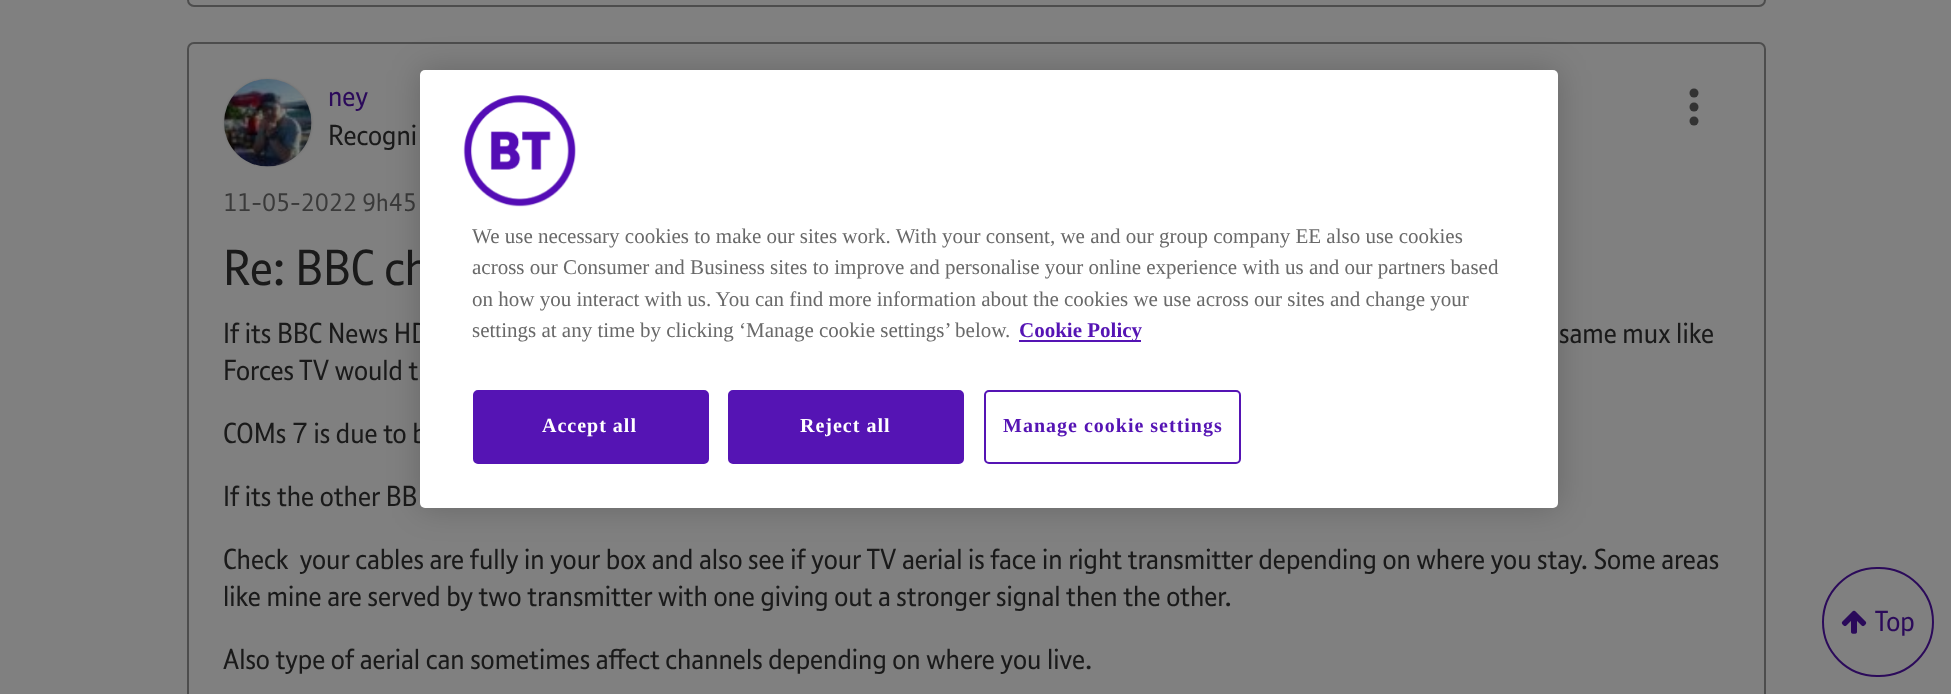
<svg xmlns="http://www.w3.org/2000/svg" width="1951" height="694">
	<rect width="100%" height="100%" fill="#808080" />
	<rect x="188" y="-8" width="1577" height="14" rx="6" fill="none" stroke="#4D4D4D" stroke-width="2" />
	<rect x="188" y="43" width="1577" height="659" rx="6" fill="none" stroke="#4D4D4D" stroke-width="2" />
	<rect x="224" y="79" width="88" height="87" rx="43.5" fill="#6F6F6F" filter="blur(1px)" />
	<image x="224" y="79" width="88" height="88" href="assets/img1.png" />
	<text x="328" y="106" font-family="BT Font" font-size="28" fill="#2B0A5A">ney</text>
	<text x="328" y="145" font-family="BT Font" font-size="28" fill="#1A1A1A">Recogni</text>
	<circle cx="1694" cy="93" r="4.5" fill="#333333" />
	<circle cx="1694" cy="107" r="4.5" fill="#333333" />
	<circle cx="1694" cy="121" r="4.5" fill="#333333" />
	<text x="223" y="211" font-family="BT Font" font-size="24.5" fill="#3A3A3A">11-05-2022 9h45</text>
	<text x="223" y="285" font-family="BT Font" font-size="49" fill="#1A1A1A">Re: BBC ch</text>
	<g font-family="BT Font" font-size="28" fill="#1A1A1A">
		<text x="223" y="343">If its BBC News HD</text>
		<text x="1559" y="343">same mux like</text>
		<text x="223" y="380">Forces TV would t</text>
		<text x="223" y="443">COMs 7 is due to b</text>
		<text x="223" y="506">If its the other BB</text>
		<text x="223" y="569" xml:space="preserve">Check  your cables are fully in your box and also see if your TV aerial is face in right transmitter depending on where you stay. Some areas</text>
		<text x="223" y="606">like mine are served by two transmitter with one giving out a stronger signal then the other.</text>
		<text x="223" y="669">Also type of aerial can sometimes affect channels depending on where you live.</text>
	</g>
	<rect x="1823" y="568" width="110" height="108" rx="54" fill="none" stroke="#2B0A5A" stroke-width="2" />
	<image x="1841" y="610" width="26" height="24" href="assets/img2.png" />
	<text x="1875" y="631" font-family="BT Font" font-size="28" fill="#2B0A5A">Top</text>
	<rect x="420" y="70" width="1138" height="438" rx="5" fill="#000000" fill-opacity="0.2" filter="blur(16px)" />
	<rect x="420" y="70" width="1138" height="438" rx="5" fill="#FFFFFF" />
	<image x="463" y="95" width="113" height="112" href="assets/img3.png" />
	<g font-family="Liberation Serif" font-size="21" fill="#696969">
		<text x="472" y="243">We use necessary cookies to make our sites work. With your consent, we and our group company EE also use cookies</text>
		<text x="472" y="274">across our Consumer and Business sites to improve and personalise your online experience with us and our partners based</text>
		<text x="472" y="306">on how you interact with us. You can find more information about the cookies we use across our sites and change your</text>
		<text x="472" y="337">settings at any time by clicking ‘Manage cookie settings’ below.</text>
	</g>
	<rect x="1019" y="340" width="122" height="2" fill="#5514B4" />
	<text x="1019" y="337" font-family="Liberation Serif" font-size="21" font-weight="700" fill="#5514B4">Cookie Policy</text>
	<rect x="474" y="391" width="234" height="72" rx="4" fill="#5514B4" stroke="#5514B4" stroke-width="2" />
	<text x="542" y="432" font-family="Liberation Serif" font-size="20" font-weight="700" letter-spacing="1" fill="#FFFFFF">Accept all</text>
	<rect x="729" y="391" width="234" height="72" rx="4" fill="#5514B4" stroke="#5514B4" stroke-width="2" />
	<text x="800" y="432" font-family="Liberation Serif" font-size="20" font-weight="700" letter-spacing="1" fill="#FFFFFF">Reject all</text>
	<rect x="985" y="391" width="255" height="72" rx="4" fill="none" stroke="#5514B4" stroke-width="2" />
	<text x="1003" y="432" font-family="Liberation Serif" font-size="20" font-weight="700" letter-spacing="1" fill="#5514B4">Manage cookie settings</text>
</svg>
